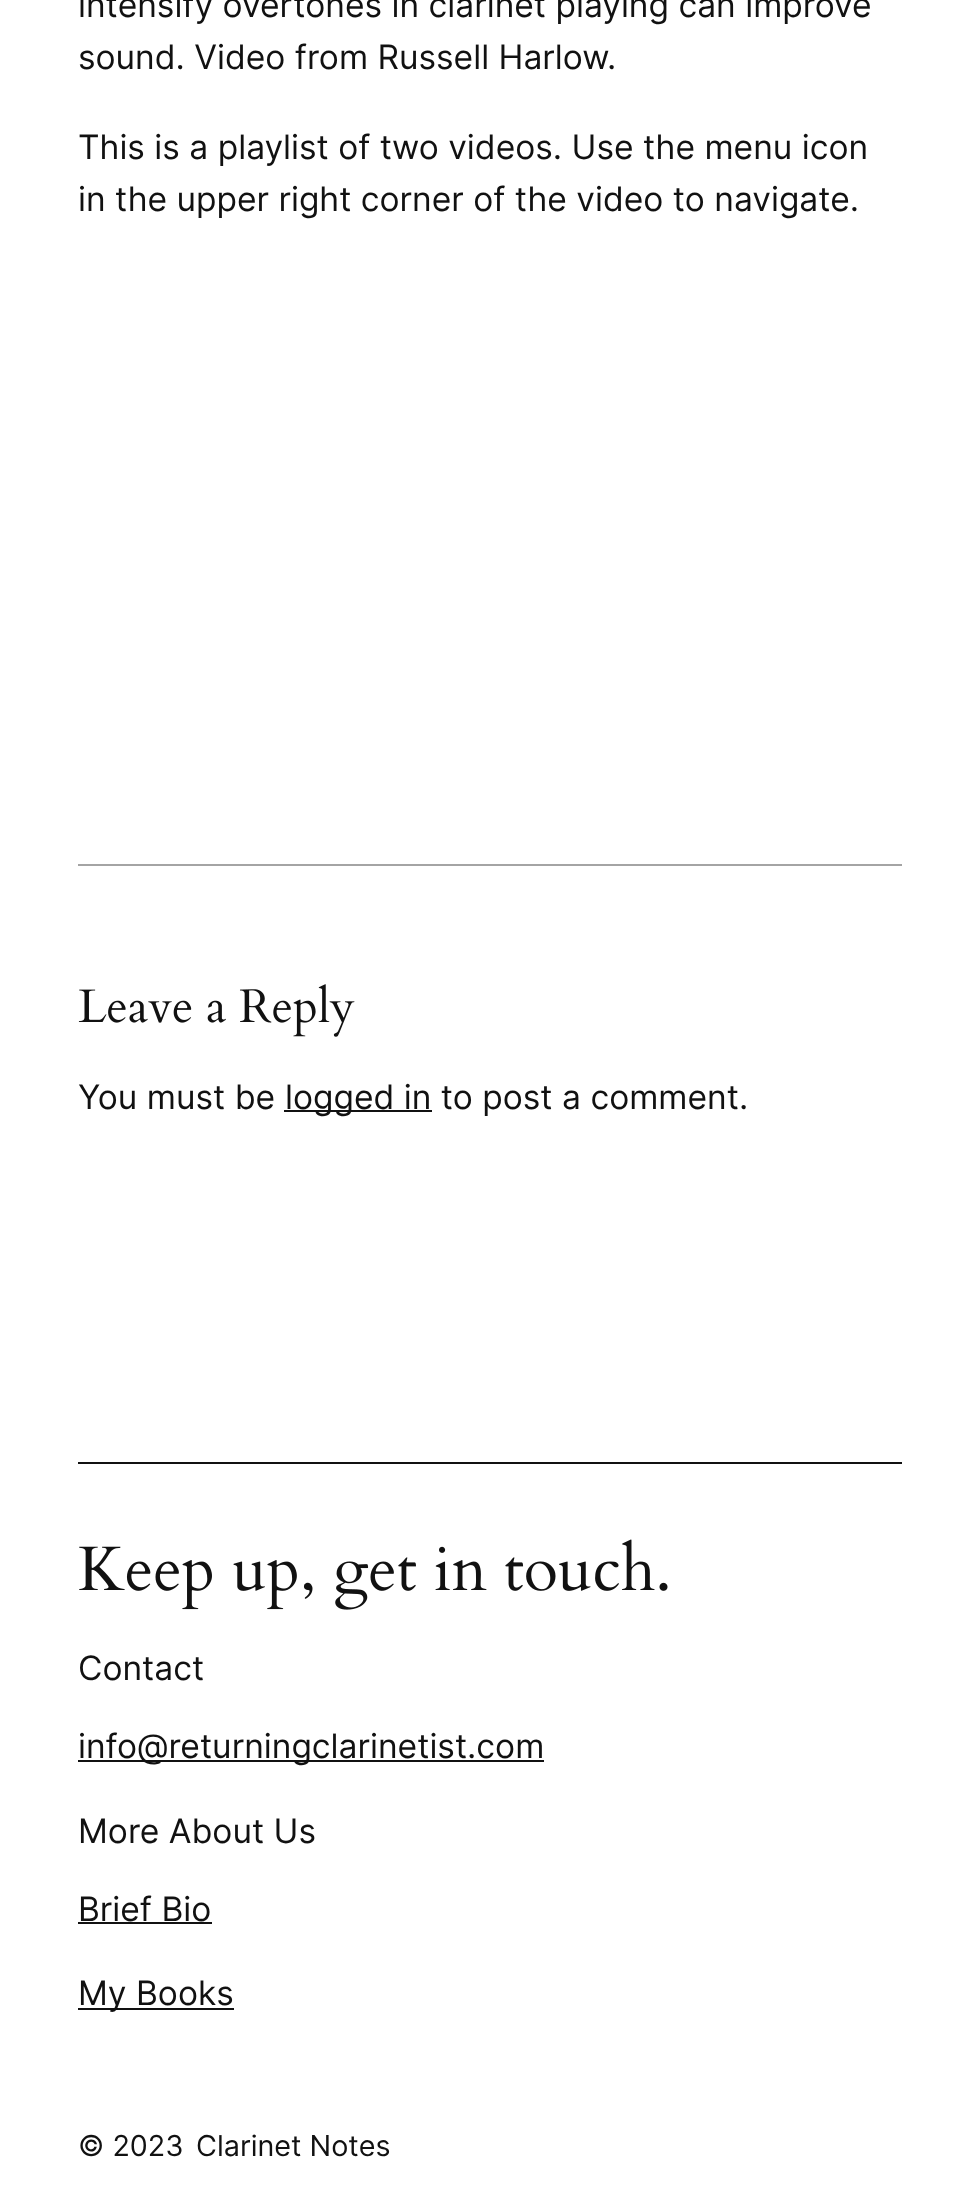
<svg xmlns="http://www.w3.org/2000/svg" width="980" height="2208">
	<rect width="100%" height="100%" fill="#FFFFFF" />
	<g font-family="Inter" font-size="33.6" fill="#111111">
		<text x="78" y="17">intensify overtones in clarinet playing can improve</text>
		<text x="78" y="69">sound. Video from Russell Harlow.</text>
		<text x="78" y="159">This is a playlist of two videos. Use the menu icon</text>
		<text x="78" y="211">in the upper right corner of the video to navigate.</text>
	</g>
	<rect x="78" y="864" width="824" height="2" fill="#A4A4A4" />
	<image x="78" y="984" width="277" height="53" href="assets/img1.png" />
	<text x="78" y="1109" font-family="Inter" font-size="33.6" fill="#111111">You must be</text>
	<rect x="284" y="1110" width="148" height="2" fill="#111111" />
	<text x="285" y="1109" font-family="Inter" font-size="33.6" fill="#111111">logged in to post a comment.</text>
	<rect x="78" y="1462" width="824" height="2" fill="#111111" />
	<image x="79" y="1539" width="589" height="71" href="assets/img2.png" />
	<text x="78" y="1680" font-family="Inter" font-size="33.6" fill="#111111">Contact</text>
	<rect x="78" y="1760" width="466" height="2" fill="#111111" />
	<g font-family="Inter" font-size="33.6" fill="#111111">
		<text x="78" y="1758">info@returningclarinetist.com</text>
		<text x="78" y="1843">More About Us</text>
		<text x="78" y="1921">Brief Bio</text>
	</g>
	<rect x="78" y="1922" width="134" height="2" fill="#111111" />
	<rect x="78" y="2008" width="156" height="2" fill="#111111" />
	<text x="78" y="2005" font-family="Inter" font-size="33.6" fill="#111111">My Books</text>
	<g font-family="Inter" font-size="28.75" fill="#111111">
		<text x="78" y="2156">© 2023</text>
		<text x="196" y="2156">Clarinet Notes</text>
	</g>
</svg>
